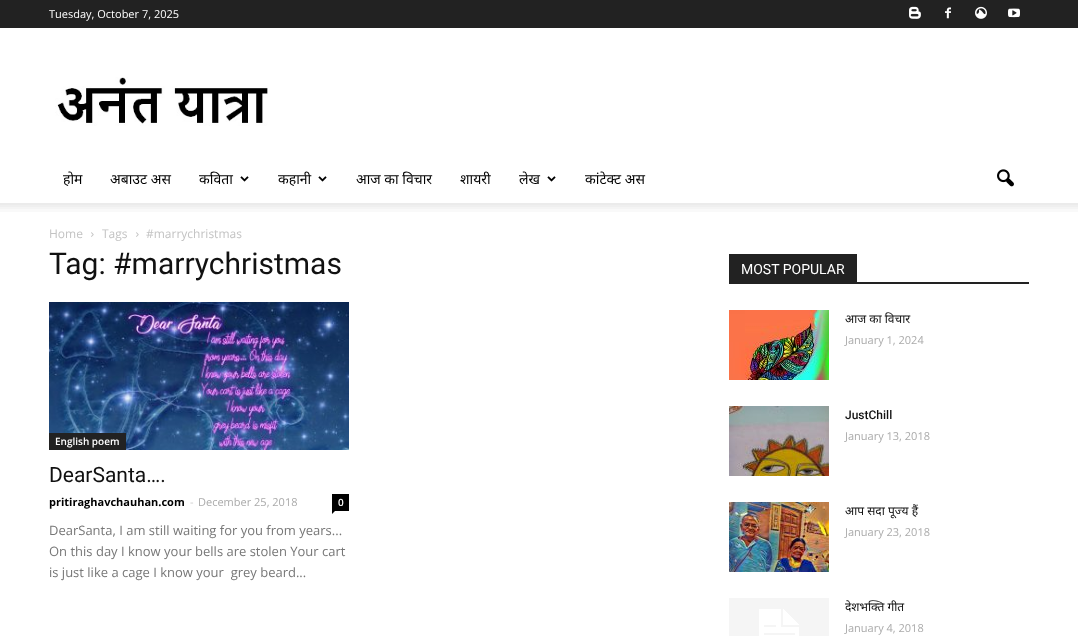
<svg xmlns="http://www.w3.org/2000/svg" width="1078" height="636">
	<rect width="100%" height="100%" fill="#FFFFFF" />
	<rect x="0" y="0" width="1078" height="28" fill="#222222" />
	<text x="49" y="18" font-family="Open Sans" font-size="11" fill="#FFFFFF">Tuesday, October 7, 2025</text>
	<image x="909" y="6" width="12" height="13" href="assets/img1.png" />
	<image x="945" y="7" width="6" height="12" href="assets/img2.png" />
	<image x="975" y="6" width="12" height="13" href="assets/img3.png" />
	<image x="1008" y="8" width="12" height="10" href="assets/img4.png" />
	<image x="55" y="77" width="213" height="49" href="assets/img5.png" />
	<g font-family="Noto Sans" font-size="14" fill="#000000">
		<text x="63" y="184">होम</text>
		<text x="110" y="184">अबाउट अस</text>
		<text x="199" y="184">कविता</text>
	</g>
	<image x="240" y="176" width="9" height="6" href="assets/img6.png" />
	<text x="278" y="184" font-family="Noto Sans" font-size="14" fill="#000000">कहानी</text>
	<image x="318" y="176" width="9" height="6" href="assets/img6.png" />
	<g font-family="Noto Sans" font-size="14" fill="#000000">
		<text x="356" y="184">आज का विचार</text>
		<text x="460" y="184">शायरी</text>
		<text x="519" y="184">लेख</text>
	</g>
	<image x="547" y="176" width="9" height="6" href="assets/img6.png" />
	<text x="585" y="184" font-family="Noto Sans" font-size="14" fill="#000000">कांटेक्ट अस</text>
	<image x="997" y="169" width="17" height="18" href="assets/img7.png" />
	<image x="0" y="203" width="1078" height="9" href="assets/img8.png" />
	<text x="49" y="238" font-family="Open Sans" font-size="12" fill="#C3C3C3">Home</text>
	<image x="91" y="232" width="3" height="5" href="assets/img9.png" />
	<text x="102" y="238" font-family="Open Sans" font-size="12" fill="#C3C3C3">Tags</text>
	<image x="136" y="232" width="3" height="5" href="assets/img9.png" />
	<text x="146" y="238" font-family="Open Sans" font-size="12" fill="#C3C3C3">#marrychristmas</text>
	<text x="49" y="274" font-family="Roboto" font-size="30" fill="#111111">Tag: #marrychristmas</text>
	<image x="49" y="302" width="300" height="148" href="assets/img10.png" />
	<rect x="49" y="433" width="77" height="17" fill="#222222" />
	<text x="55" y="445" font-family="Open Sans" font-size="10" font-weight="600" fill="#FFFFFF">English poem</text>
	<text x="49" y="482" font-family="Roboto" font-size="21" fill="#111111">DearSanta….</text>
	<text x="49" y="506" font-family="Open Sans" font-size="11" font-weight="700" fill="#000000">pritiraghavchauhan.com</text>
	<text x="190" y="506" font-family="Open Sans" font-size="11" fill="#CCCCCC">-</text>
	<text x="198" y="506" font-family="Open Sans" font-size="11" fill="#AAAAAA">December 25, 2018</text>
	<rect x="332" y="494" width="17" height="17" fill="#000000" />
	<text x="338" y="506" font-family="Open Sans" font-size="10" font-weight="600" fill="#FFFFFF">0</text>
	<path d="M332 511H335L332 514Z" fill="#000000" />
	<g font-family="Open Sans" font-size="13" fill="#777777">
		<text x="49" y="535">DearSanta, I am still waiting for you from years...</text>
		<text x="49" y="556">On this day I know your bells are stolen Your cart</text>
		<text x="49" y="577" xml:space="preserve">is just like a cage I know your  grey beard...</text>
	</g>
	<rect x="729" y="282" width="300" height="2" fill="#222222" />
	<rect x="729" y="254" width="128" height="28" fill="#222222" />
	<text x="741" y="274" font-family="Roboto" font-size="14" fill="#FFFFFF">MOST POPULAR</text>
	<image x="729" y="310" width="100" height="70" href="assets/img11.png" />
	<text x="845" y="323" font-family="Noto Sans" font-size="12" fill="#111111">आज का विचार</text>
	<text x="845" y="344" font-family="Open Sans" font-size="11" fill="#AAAAAA">January 1, 2024</text>
	<image x="729" y="406" width="100" height="70" href="assets/img12.png" />
	<text x="845" y="419" font-family="Roboto" font-size="12" font-weight="500" fill="#111111">JustChill</text>
	<text x="845" y="440" font-family="Open Sans" font-size="11" fill="#AAAAAA">January 13, 2018</text>
	<image x="729" y="502" width="100" height="70" href="assets/img13.png" />
	<text x="845" y="515" font-family="Noto Sans" font-size="12" fill="#111111">आप सदा पूज्य हैं</text>
	<text x="845" y="536" font-family="Open Sans" font-size="11" fill="#AAAAAA">January 23, 2018</text>
	<image x="729" y="598" width="100" height="38" href="assets/img14.png" />
	<text x="845" y="611" font-family="Noto Sans" font-size="12" fill="#111111">देशभक्ति गीत</text>
	<text x="845" y="632" font-family="Open Sans" font-size="11" fill="#AAAAAA">January 4, 2018</text>
</svg>
